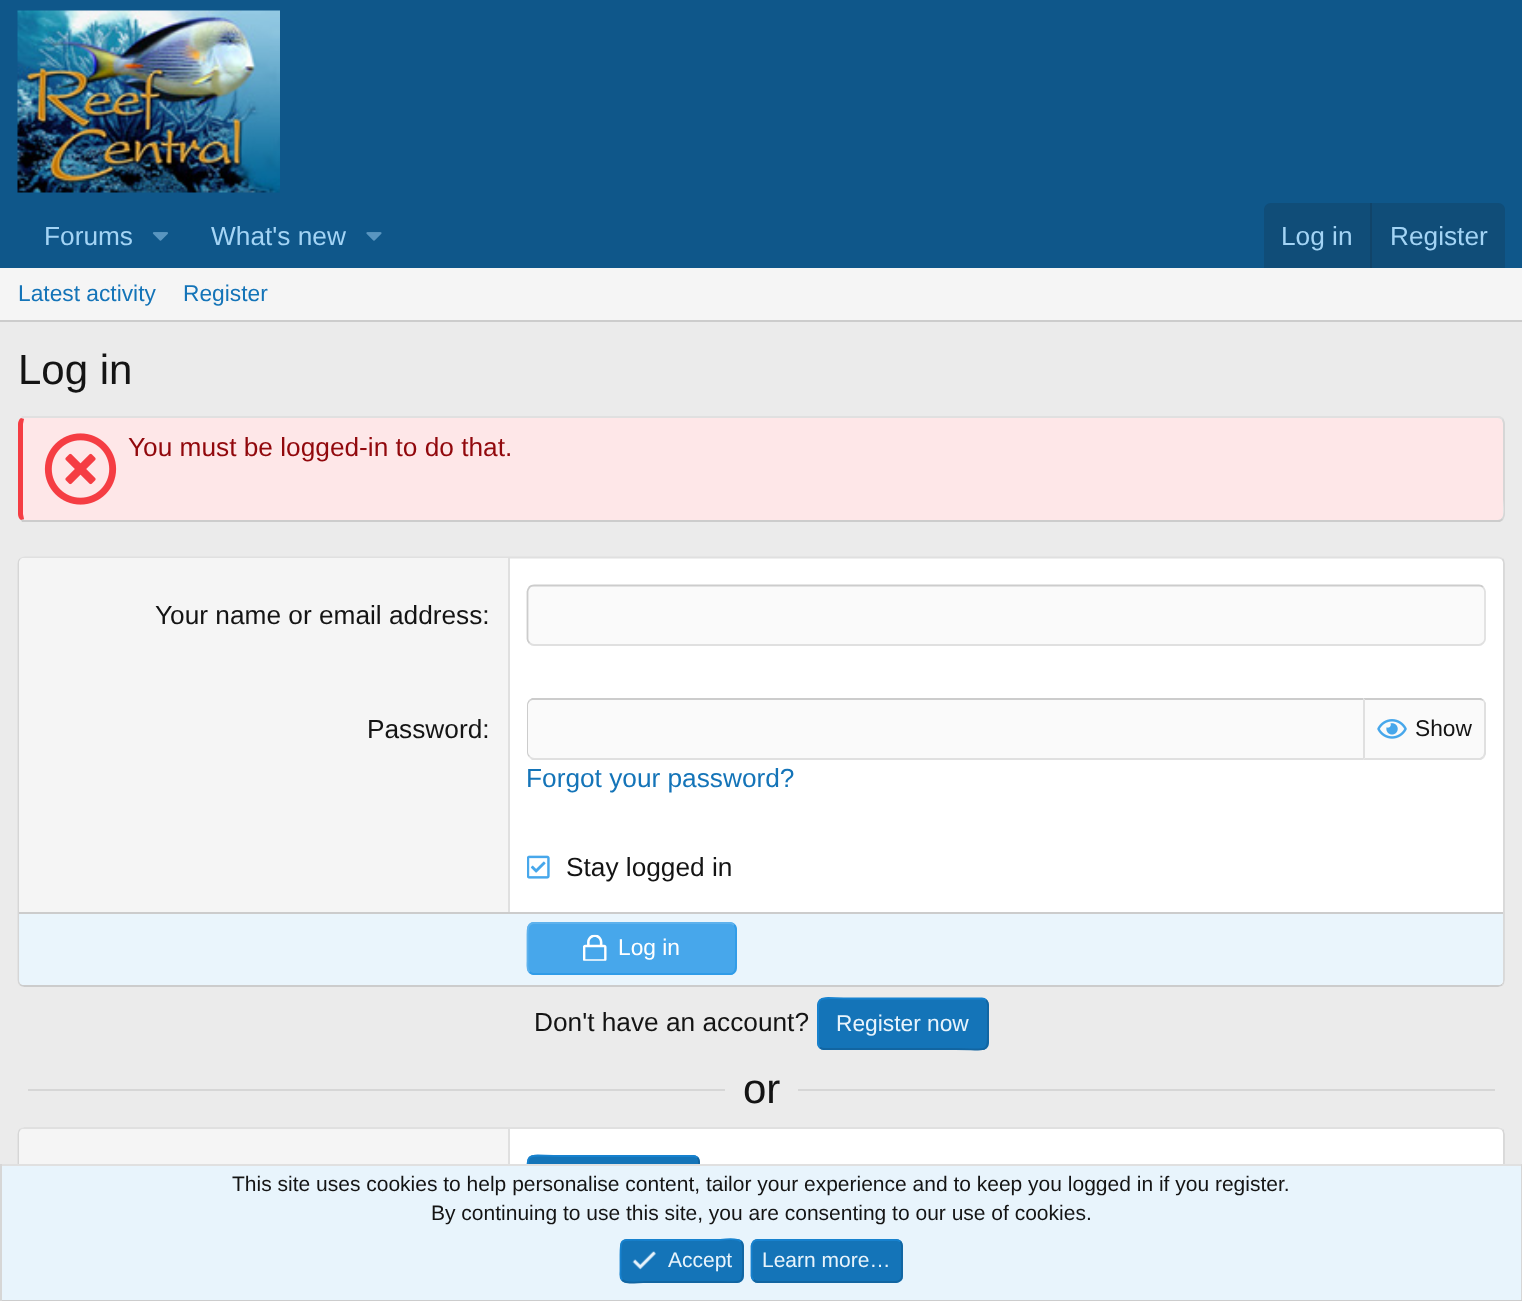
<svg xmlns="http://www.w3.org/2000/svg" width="1522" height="1301">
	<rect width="100%" height="100%" fill="#EBEBEB" />
	<rect x="0" y="0" width="1522" height="268" fill="#0F578A" />
	<image x="17" y="10" width="263" height="183" href="assets/img1.png" />
	<text x="44" y="245" font-family="Liberation Sans" font-size="26.25" fill="#A3D4F5">Forums</text>
	<image x="152" y="232" width="16" height="9" href="assets/img2.png" />
	<text x="211" y="245" font-family="Liberation Sans" font-size="26.25" fill="#A3D4F5">What's new</text>
	<image x="366" y="232" width="16" height="9" href="assets/img3.png" />
	<path d="M1271 203H1498C1502 203 1505 206 1505 210V268H1264V210C1264 206 1267 203 1271 203Z" fill="#104D78" />
	<text x="1281" y="245" font-family="Liberation Sans" font-size="26.25" fill="#A3D4F5">Log in</text>
	<rect x="1370" y="203" width="2" height="65" fill="#114469" />
	<text x="1390" y="245" font-family="Liberation Sans" font-size="26.25" fill="#A3D4F5">Register</text>
	<rect x="0" y="268" width="1522" height="52" fill="#F5F5F5" />
	<rect x="0" y="320" width="1522" height="2" fill="#CCCCCC" />
	<g font-family="Liberation Sans" font-size="22.75" fill="#1474B8">
		<text x="18" y="301">Latest activity</text>
		<text x="183" y="301">Register</text>
	</g>
	<text x="18" y="384" font-family="Liberation Sans" font-size="42" fill="#141414">Log in</text>
	<path d="M24 418H1498C1501 418 1503 421 1503 424V514C1503 517 1501 520 1498 520H24C24 520 23 517 23 514V424C23 421 24 418 24 418Z" fill="#FEE7E8" />
	<path d="M24 418V419L21 418L22 416H1500L1503 418L1502 420C1501 419 1500 418 1498 418Z" fill="#E0E0E0" />
	<path d="M1505 514V424C1505 422 1504 420 1503 418L1502 420L1503 423V499C1503 500 1505 514 1502 518L1503 520C1504 518 1505 516 1505 514Z" fill="#D6D6D6" />
	<path d="M22 522L21 520L24 519V520H1498C1500 520 1501 519 1502 518L1503 520L1500 522Z" fill="#CCCCCC" />
	<path d="M21 520C19 519 18 516 18 514V424C18 422 19 419 21 418L24 419L23 424V514L24 519Z" fill="#F53D43" />
	<image x="44" y="433" width="73" height="72" href="assets/img4.png" />
	<text x="128" y="456" font-family="Liberation Sans" font-size="26.25" fill="#91080C">You must be logged-in to do that.</text>
	<rect x="18" y="557" width="1487" height="430" rx="7" fill="#FFFFFF" />
	<path d="M20 559C21.5 558 23 557.5 24.5 557.5H1498C1499.5 557.5 1501 558 1502.5 559" fill="none" stroke="#E0E0E0" stroke-width="1.8" />
	<path d="M1502.5 559C1503.5 560.5 1504 562 1504 563.5V980C1504 981.5 1503.5 983 1502.5 984.5" fill="none" stroke="#D6D6D6" stroke-width="1.8" />
	<path d="M1502.5 984.5C1501 985.5 1499.5 986 1498 986H24.5C23 986 21.5 985.5 20 984.5" fill="none" stroke="#CCCCCC" stroke-width="1.8" />
	<path d="M20 984.5C19 983 18.5 981.5 18.5 980V563.5C18.5 562 19 560.5 20 559" fill="none" stroke="#D6D6D6" stroke-width="1.8" />
	<path d="M24 558H509V672H19V563C19 560 21 558 24 558Z" fill="#F5F5F5" />
	<rect x="508" y="558" width="2" height="354" fill="#E0E0E0" />
	<text x="155" y="624" font-family="Liberation Sans" font-size="26.25" fill="#141414">Your name or email address:</text>
	<rect x="527" y="585" width="959" height="61" rx="7" fill="#FAFAFA" />
	<path d="M1483 587C1484 588.5 1485 590 1485 591.5V639C1485 640.5 1484 642 1483 643C1482 644 1480.5 645 1479 645H534C532 645 530.5 644 529.5 643" fill="none" stroke="#E0E0E0" stroke-width="1.8" />
	<path d="M529.5 643C528.5 642 527.5 640.5 527.5 639V591.5C527.5 590 528.5 588.5 529.5 587C530.5 586 532 585.5 534 585.5H1479C1480.5 585.5 1482 586 1483 587" fill="none" stroke="#CCCCCC" stroke-width="1.8" />
	<rect x="19" y="672" width="489" height="240" fill="#F5F5F5" />
	<text x="367" y="738" font-family="Liberation Sans" font-size="26.25" fill="#141414">Password:</text>
	<path d="M534 698H1363V760H534C530 760 527 757 527 753V705C527 701 530 698 534 698Z" fill="#FAFAFA" />
	<path d="M534 700C532 700 531 700 530 701L529 700L532 698H1363V700Z" fill="#CCCCCC" />
	<path d="M532 760L529 757L530 756C531 757 533 758 534 758H1363V760Z" fill="#E0E0E0" />
	<path d="M529 757C528 756 527 754 527 752V705C527 703 528 701 529 700L530 701C529 702 528 704 528 705V752C528 754 529 755 530 756Z" fill="#CCCCCC" />
	<path d="M1363 698H1479C1483 698 1486 701 1486 705V753C1486 757 1483 760 1479 760H1363Z" fill="#FAFAFA" />
	<path d="M1365 700L1363 698H1481L1484 700L1483 701C1482 700 1480 700 1479 700Z" fill="#CCCCCC" />
	<path d="M1486 754L1484 758L1483 756C1483 755 1484 754 1484 752V705C1484 704 1484 702 1483 701L1484 700L1486 703Z" fill="#E0E0E0" />
	<path d="M1484 758L1481 760H1363L1365 758H1480L1483 756Z" fill="#E0E0E0" />
	<path d="M1363 760L1365 758V700L1363 698Z" fill="#E0E0E0" />
	<image x="1377" y="719" width="30" height="20" href="assets/img5.png" />
	<text x="1415" y="736" font-family="Liberation Sans" font-size="22.75" fill="#141414">Show</text>
	<text x="526" y="787" font-family="Liberation Sans" font-size="26.25" fill="#1474B8">Forgot your password?</text>
	<image x="527" y="855" width="23" height="24" href="assets/img6.png" />
	<text x="566" y="876" font-family="Liberation Sans" font-size="26.25" fill="#141414">Stay logged in</text>
	<path d="M19 912H1503V980C1503 983 1501 985 1498 985H24C21 985 19 983 19 980Z" fill="#E8F4FC" fill-opacity="0.9" />
	<rect x="19" y="912" width="1484" height="2" fill="#CCCCCC" />
	<rect x="527" y="922" width="210" height="53" rx="7" fill="#47A7EB" />
	<path d="M734 925C737 927.5 736 932.5 736 935.5V961.5C736 966 736.5 974 730 974H533C531.5 973.5 530.5 973 529.5 972" fill="none" stroke="#309CE8" stroke-width="1.8" />
	<path d="M529.5 972C526.5 969.5 527.5 964.5 527.5 961.5V935.5C527.5 931 527 923 534 923H730.5C732 923.5 733 924 734 925" fill="none" stroke="#5EB2ED" stroke-width="1.8" />
	<image x="583" y="934" width="24" height="27" href="assets/img7.png" />
	<text x="618" y="955" font-family="Liberation Sans" font-size="22.75" fill="#FFFFFF">Log in</text>
	<text x="534" y="1031" font-family="Liberation Sans" font-size="26.25" fill="#141414">Don't have an account?</text>
	<rect x="817" y="998" width="172" height="52" rx="7" fill="#1474B8" />
	<path d="M986 1000C989 1003 988 1007.5 988 1011V1024C988 1055.5 991 1049 955.5 1049H824C822.5 1049 821 1048.5 820 1047.5" fill="none" stroke="#1265A1" stroke-width="1.8" />
	<path d="M820 1047.5C817 1044.5 818 1040 818 1036.5V1024C818 992 815 998.5 850.5 998.5H982C983.5 998.5 985 999 986 1000" fill="none" stroke="#1782CF" stroke-width="1.8" />
	<text x="836" y="1031" font-family="Liberation Sans" font-size="22.75" fill="#E8F4FC">Register now</text>
	<rect x="28" y="1089" width="697" height="2" fill="#D6D6D6" />
	<text x="743" y="1103" font-family="Liberation Sans" font-size="42" fill="#141414">or</text>
	<rect x="798" y="1089" width="697" height="2" fill="#D6D6D6" />
	<rect x="18" y="1127" width="1487" height="109" rx="7" fill="#FFFFFF" />
	<path d="M20 1129.5C21.5 1128.5 23 1128 24.5 1128H1498C1499.5 1128 1501 1128.5 1502.5 1129.5" fill="none" stroke="#E0E0E0" stroke-width="1.8" />
	<path d="M1502.5 1129.5C1503.5 1131 1504 1132.5 1504 1134V1228.5C1504 1230 1503.5 1231.5 1502.5 1233" fill="none" stroke="#D6D6D6" stroke-width="1.8" />
	<path d="M20 1233C19 1231.5 18.5 1230 18.5 1228.5V1134C18.5 1132.5 19 1131 20 1129.5" fill="none" stroke="#D6D6D6" stroke-width="1.8" />
	<path d="M24 1129H509V1234H24C21 1234 19 1232 19 1229V1134C19 1131 21 1129 24 1129Z" fill="#F5F5F5" />
	<rect x="508" y="1129" width="2" height="35" fill="#E0E0E0" />
	<rect x="527" y="1155" width="173" height="53" rx="7" fill="#1474B8" />
	<path d="M697.5 1157.5C700 1160.5 699 1165 699 1168.5V1181C699 1213 702.5 1206.5 666.5 1206.5H534C532 1206.5 530.5 1206 529.5 1205" fill="none" stroke="#1265A1" stroke-width="1.8" />
	<path d="M529.5 1205C526.5 1202 527.5 1197.5 527.5 1194V1181C527.5 1149.5 524.5 1156 560.5 1156H693C694.5 1156 696 1156.5 697.5 1157.5" fill="none" stroke="#1782CF" stroke-width="1.8" />
	<rect x="2" y="1166" width="1519" height="134" fill="#E8F4FC" />
	<rect x="0" y="1164" width="1522" height="2" fill="#E0E0E0" />
	<rect x="1521" y="1164" width="1" height="137" fill="#D6D6D6" />
	<rect x="0" y="1300" width="1522" height="1" fill="#CCCCCC" />
	<rect x="0" y="1164" width="2" height="137" fill="#D6D6D6" />
	<g font-family="Liberation Sans" font-size="21" fill="#141414">
		<text x="232" y="1191">This site uses cookies to help personalise content, tailor your experience and to keep you logged in if you register.</text>
		<text x="431" y="1220">By continuing to use this site, you are consenting to our use of cookies.</text>
	</g>
	<rect x="620" y="1239" width="124" height="44" rx="7" fill="#1474B8" />
	<path d="M741 1241.5C743.5 1244 743 1248 743 1251V1261C743 1285.5 745 1282 718.5 1282H645C643 1282 626.5 1284.5 622 1280" fill="none" stroke="#1265A1" stroke-width="1.8" />
	<path d="M622 1280C619.5 1277.5 620.5 1274 620.5 1271V1261C620.5 1236 618.5 1240 645 1240H718.5C720 1240 736.5 1237 741 1241.5" fill="none" stroke="#1782CF" stroke-width="1.8" />
	<image x="632" y="1251" width="24" height="19" href="assets/img8.png" />
	<text x="668" y="1267" font-family="Liberation Sans" font-size="21" fill="#E8F4FC">Accept</text>
	<rect x="751" y="1239" width="152" height="44" rx="7" fill="#1474B8" />
	<path d="M900.5 1241.5C901.5 1243 902 1244.5 902 1246V1276C902 1277.5 901.5 1279 900.5 1280C899 1281 897.5 1282 896 1282H758C756 1282 754.5 1281 753.5 1280" fill="none" stroke="#1265A1" stroke-width="1.8" />
	<path d="M753.5 1280C752.5 1279 751.5 1277.5 751.5 1276V1246C751.5 1244.5 752.5 1243 753.5 1241.5C754.5 1240.5 756 1240 758 1240H896C897.5 1240 899 1240.5 900.5 1241.5" fill="none" stroke="#1782CF" stroke-width="1.8" />
	<text x="762" y="1267" font-family="Liberation Sans" font-size="21" fill="#E8F4FC">Learn more…</text>
</svg>
